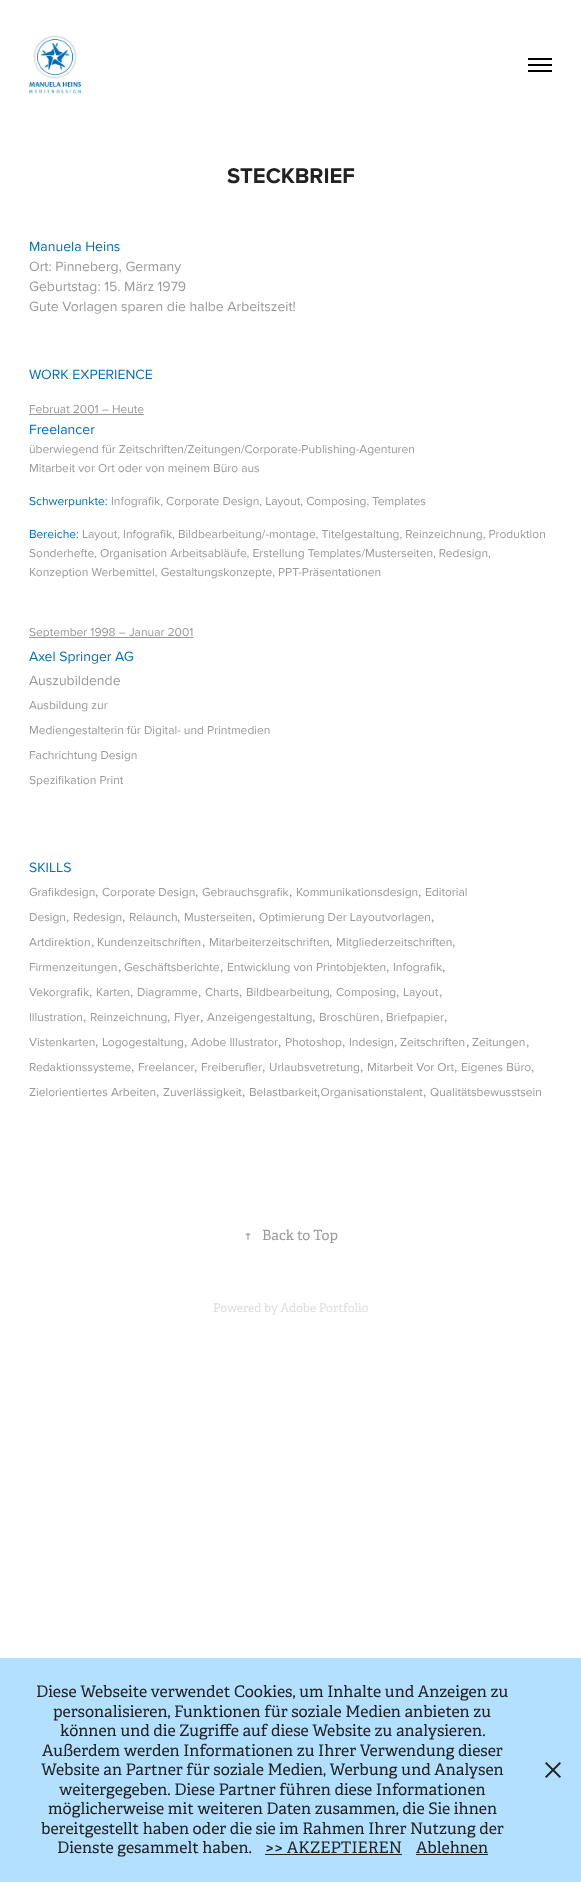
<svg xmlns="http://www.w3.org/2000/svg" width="581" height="1882">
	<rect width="100%" height="100%" fill="#FFFFFF" />
	<image x="29" y="35" width="52" height="59" href="assets/img1.png" />
	<rect x="528" y="58" width="24" height="2" fill="#000000" />
	<rect x="528" y="64" width="24" height="2" fill="#000000" />
	<rect x="528" y="70" width="24" height="2" fill="#000000" />
	<text x="227" y="183" font-family="Proxima Nova" font-size="22" font-weight="700" fill="#222222">STECKBRIEF</text>
	<text x="29" y="251" font-family="Proxima Nova" font-size="14" fill="#006EB7">Manuela Heins</text>
	<g font-family="Proxima Nova" font-size="14" fill="#999999">
		<text x="29" y="271">Ort: Pinneberg, Germany</text>
		<text x="29" y="291">Geburtstag: 15. März 1979</text>
		<text x="29" y="311">Gute Vorlagen sparen die halbe Arbeitszeit!</text>
	</g>
	<text x="29" y="379" font-family="Proxima Nova" font-size="14" fill="#006EB7">WORK EXPERIENCE</text>
	<text x="29" y="413" font-family="Proxima Nova" font-size="12" fill="#999999">Februat 2001 – Heute</text>
	<rect x="29" y="414" width="115" height="1" fill="#999999" />
	<text x="29" y="434" font-family="Proxima Nova" font-size="14" fill="#006EB7">Freelancer</text>
	<g font-family="Proxima Nova" font-size="12" fill="#999999">
		<text x="29" y="453">überwiegend für Zeitschriften/Zeitungen/Corporate-Publishing-Agenturen</text>
		<text x="29" y="472">Mitarbeit vor Ort oder von meinem Büro aus</text>
	</g>
	<text x="29" y="505" font-family="Proxima Nova" font-size="12" fill="#006EB7">Schwerpunkte:</text>
	<text x="111" y="505" font-family="Proxima Nova" font-size="12" fill="#999999">Infografik, Corporate Design, Layout, Composing, Templates</text>
	<text x="29" y="538" font-family="Proxima Nova" font-size="12" fill="#006EB7">Bereiche:</text>
	<g font-family="Proxima Nova" font-size="12" fill="#999999">
		<text x="82" y="538">Layout, Infografik, Bildbearbeitung/-montage, Titelgestaltung, Reinzeichnung, Produktion</text>
		<text x="29" y="557">Sonderhefte, Organisation Arbeitsabläufe, Erstellung Templates/Musterseiten, Redesign,</text>
		<text x="29" y="576">Konzeption Werbemittel, Gestaltungskonzepte, PPT-Präsentationen</text>
	</g>
	<rect x="29" y="637" width="164" height="1" fill="#999999" />
	<text x="29" y="636" font-family="Proxima Nova" font-size="12" fill="#999999">September 1998 – Januar 2001</text>
	<text x="29" y="661" font-family="Proxima Nova" font-size="14" fill="#006EB7">Axel Springer AG</text>
	<text x="29" y="685" font-family="Proxima Nova" font-size="14" fill="#999999">Auszubildende</text>
	<g font-family="Proxima Nova" font-size="12" fill="#999999">
		<text x="29" y="709">Ausbildung zur</text>
		<text x="29" y="734">Mediengestalterin für Digital- und Printmedien</text>
		<text x="29" y="759">Fachrichtung Design</text>
		<text x="29" y="784">Spezifikation Print</text>
	</g>
	<text x="29" y="872" font-family="Proxima Nova" font-size="14" fill="#006EB7">SKILLS</text>
	<text x="29" y="896" font-family="Proxima Nova" font-size="12" fill="#999999">Grafikdesign</text>
	<text x="95" y="896" font-family="Proxima Nova" font-size="14" fill="#999999">,</text>
	<text x="102" y="896" font-family="Proxima Nova" font-size="12" fill="#999999">Corporate Design</text>
	<text x="195" y="896" font-family="Proxima Nova" font-size="14" fill="#999999">,</text>
	<text x="202" y="896" font-family="Proxima Nova" font-size="12" fill="#999999">Gebrauchsgrafik</text>
	<text x="289" y="896" font-family="Proxima Nova" font-size="14" fill="#999999">,</text>
	<text x="296" y="896" font-family="Proxima Nova" font-size="12" fill="#999999">Kommunikationsdesign</text>
	<text x="418" y="896" font-family="Proxima Nova" font-size="14" fill="#999999">,</text>
	<g font-family="Proxima Nova" font-size="12" fill="#999999">
		<text x="425" y="896">Editorial</text>
		<text x="29" y="921">Design</text>
	</g>
	<text x="66" y="921" font-family="Proxima Nova" font-size="14" fill="#999999">,</text>
	<text x="73" y="921" font-family="Proxima Nova" font-size="12" fill="#999999">Redesign</text>
	<text x="122" y="921" font-family="Proxima Nova" font-size="14" fill="#999999">,</text>
	<text x="129" y="921" font-family="Proxima Nova" font-size="12" fill="#999999">Relaunch</text>
	<text x="177" y="921" font-family="Proxima Nova" font-size="14" fill="#999999">,</text>
	<text x="184" y="921" font-family="Proxima Nova" font-size="12" fill="#999999">Musterseiten</text>
	<text x="252" y="921" font-family="Proxima Nova" font-size="14" fill="#999999">,</text>
	<text x="259" y="921" font-family="Proxima Nova" font-size="12" fill="#999999">Optimierung Der Layoutvorlagen</text>
	<text x="431" y="921" font-family="Proxima Nova" font-size="14" fill="#999999">,</text>
	<text x="29" y="946" font-family="Proxima Nova" font-size="12" fill="#999999">Artdirektion</text>
	<text x="91" y="946" font-family="Proxima Nova" font-size="14" fill="#999999">,</text>
	<text x="97" y="946" font-family="Proxima Nova" font-size="12" fill="#999999">Kundenzeitschriften</text>
	<text x="202" y="946" font-family="Proxima Nova" font-size="14" fill="#999999">,</text>
	<text x="209" y="946" font-family="Proxima Nova" font-size="12" fill="#999999">Mitarbeiterzeitschriften</text>
	<text x="329" y="946" font-family="Proxima Nova" font-size="14" fill="#999999">,</text>
	<text x="336" y="946" font-family="Proxima Nova" font-size="12" fill="#999999">Mitgliederzeitschriften</text>
	<text x="452" y="946" font-family="Proxima Nova" font-size="14" fill="#999999">,</text>
	<text x="29" y="971" font-family="Proxima Nova" font-size="12" fill="#999999">Firmenzeitungen</text>
	<text x="118" y="971" font-family="Proxima Nova" font-size="14" fill="#999999">,</text>
	<text x="124" y="971" font-family="Proxima Nova" font-size="12" fill="#999999">Geschäftsberichte</text>
	<text x="220" y="971" font-family="Proxima Nova" font-size="14" fill="#999999">,</text>
	<text x="227" y="971" font-family="Proxima Nova" font-size="12" fill="#999999">Entwicklung von Printobjekten</text>
	<text x="386" y="971" font-family="Proxima Nova" font-size="14" fill="#999999">,</text>
	<text x="393" y="971" font-family="Proxima Nova" font-size="12" fill="#999999">Infografik</text>
	<text x="442" y="971" font-family="Proxima Nova" font-size="14" fill="#999999">,</text>
	<text x="29" y="996" font-family="Proxima Nova" font-size="12" fill="#999999">Vekorgrafik</text>
	<text x="89" y="996" font-family="Proxima Nova" font-size="14" fill="#999999">,</text>
	<text x="96" y="996" font-family="Proxima Nova" font-size="12" fill="#999999">Karten</text>
	<text x="130" y="996" font-family="Proxima Nova" font-size="14" fill="#999999">,</text>
	<text x="137" y="996" font-family="Proxima Nova" font-size="12" fill="#999999">Diagramme</text>
	<text x="198" y="996" font-family="Proxima Nova" font-size="14" fill="#999999">,</text>
	<text x="205" y="996" font-family="Proxima Nova" font-size="12" fill="#999999">Charts</text>
	<text x="239" y="996" font-family="Proxima Nova" font-size="14" fill="#999999">,</text>
	<text x="246" y="996" font-family="Proxima Nova" font-size="12" fill="#999999">Bildbearbeitung</text>
	<text x="329" y="996" font-family="Proxima Nova" font-size="14" fill="#999999">,</text>
	<text x="336" y="996" font-family="Proxima Nova" font-size="12" fill="#999999">Composing</text>
	<text x="396" y="996" font-family="Proxima Nova" font-size="14" fill="#999999">,</text>
	<text x="403" y="996" font-family="Proxima Nova" font-size="12" fill="#999999">Layout</text>
	<text x="439" y="996" font-family="Proxima Nova" font-size="14" fill="#999999">,</text>
	<text x="29" y="1021" font-family="Proxima Nova" font-size="12" fill="#999999">Illustration</text>
	<text x="83" y="1021" font-family="Proxima Nova" font-size="14" fill="#999999">,</text>
	<text x="90" y="1021" font-family="Proxima Nova" font-size="12" fill="#999999">Reinzeichnung</text>
	<text x="167" y="1021" font-family="Proxima Nova" font-size="14" fill="#999999">,</text>
	<text x="174" y="1021" font-family="Proxima Nova" font-size="12" fill="#999999">Flyer</text>
	<text x="200" y="1021" font-family="Proxima Nova" font-size="14" fill="#999999">,</text>
	<text x="207" y="1021" font-family="Proxima Nova" font-size="12" fill="#999999">Anzeigengestaltung</text>
	<text x="312" y="1021" font-family="Proxima Nova" font-size="14" fill="#999999">,</text>
	<text x="319" y="1021" font-family="Proxima Nova" font-size="12" fill="#999999">Broschüren</text>
	<text x="380" y="1021" font-family="Proxima Nova" font-size="14" fill="#999999">,</text>
	<text x="386" y="1021" font-family="Proxima Nova" font-size="12" fill="#999999">Briefpapier</text>
	<text x="444" y="1021" font-family="Proxima Nova" font-size="14" fill="#999999">,</text>
	<text x="29" y="1046" font-family="Proxima Nova" font-size="12" fill="#999999">Vistenkarten</text>
	<text x="95" y="1046" font-family="Proxima Nova" font-size="14" fill="#999999">,</text>
	<text x="102" y="1046" font-family="Proxima Nova" font-size="12" fill="#999999">Logogestaltung</text>
	<text x="184" y="1046" font-family="Proxima Nova" font-size="14" fill="#999999">,</text>
	<text x="191" y="1046" font-family="Proxima Nova" font-size="12" fill="#999999">Adobe Illustrator</text>
	<text x="278" y="1046" font-family="Proxima Nova" font-size="14" fill="#999999">,</text>
	<text x="285" y="1046" font-family="Proxima Nova" font-size="12" fill="#999999">Photoshop</text>
	<text x="342" y="1046" font-family="Proxima Nova" font-size="14" fill="#999999">,</text>
	<text x="349" y="1046" font-family="Proxima Nova" font-size="12" fill="#999999">Indesign</text>
	<text x="394" y="1046" font-family="Proxima Nova" font-size="14" fill="#999999">,</text>
	<text x="400" y="1046" font-family="Proxima Nova" font-size="12" fill="#999999">Zeitschriften</text>
	<text x="466" y="1046" font-family="Proxima Nova" font-size="14" fill="#999999">,</text>
	<text x="472" y="1046" font-family="Proxima Nova" font-size="12" fill="#999999">Zeitungen</text>
	<text x="526" y="1046" font-family="Proxima Nova" font-size="14" fill="#999999">,</text>
	<text x="29" y="1071" font-family="Proxima Nova" font-size="12" fill="#999999">Redaktionssysteme</text>
	<text x="131" y="1071" font-family="Proxima Nova" font-size="14" fill="#999999">,</text>
	<text x="138" y="1071" font-family="Proxima Nova" font-size="12" fill="#999999">Freelancer</text>
	<text x="194" y="1071" font-family="Proxima Nova" font-size="14" fill="#999999">,</text>
	<text x="201" y="1071" font-family="Proxima Nova" font-size="12" fill="#999999">Freiberufler</text>
	<text x="262" y="1071" font-family="Proxima Nova" font-size="14" fill="#999999">,</text>
	<text x="269" y="1071" font-family="Proxima Nova" font-size="12" fill="#999999">Urlaubsvetretung</text>
	<text x="360" y="1071" font-family="Proxima Nova" font-size="14" fill="#999999">,</text>
	<text x="367" y="1071" font-family="Proxima Nova" font-size="12" fill="#999999">Mitarbeit Vor Ort</text>
	<text x="454" y="1071" font-family="Proxima Nova" font-size="14" fill="#999999">,</text>
	<text x="461" y="1071" font-family="Proxima Nova" font-size="12" fill="#999999">Eigenes Büro</text>
	<text x="531" y="1071" font-family="Proxima Nova" font-size="14" fill="#999999">,</text>
	<text x="29" y="1096" font-family="Proxima Nova" font-size="12" fill="#999999">Zielorientiertes Arbeiten</text>
	<text x="156" y="1096" font-family="Proxima Nova" font-size="14" fill="#999999">,</text>
	<text x="163" y="1096" font-family="Proxima Nova" font-size="12" fill="#999999">Zuverlässigkeit</text>
	<text x="242" y="1096" font-family="Proxima Nova" font-size="14" fill="#999999">,</text>
	<g font-family="Proxima Nova" font-size="12" fill="#999999">
		<text x="249" y="1096">Belastbarkeit Organisationstalent</text>
		<text x="430" y="1096">Qualitätsbewusstsein</text>
	</g>
	<g font-family="Proxima Nova" font-size="14" fill="#999999">
		<text x="317" y="1096">,</text>
		<text x="423" y="1096">,</text>
	</g>
	<g font-family="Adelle" font-size="14" fill="#999999">
		<text x="244" y="1240">↑</text>
		<text x="262" y="1240">Back to Top</text>
	</g>
	<text x="213" y="1312" font-family="Adelle" font-size="12" fill="#DDDDDD">Powered by Adobe Portfolio</text>
	<rect x="0" y="1658" width="581" height="224" fill="#B3E0FE" />
	<g font-family="Adelle" font-size="16" fill="#222222">
		<text x="36" y="1697">Diese Webseite verwendet Cookies, um Inhalte und Anzeigen zu</text>
		<text x="53" y="1717">personalisieren, Funktionen für soziale Medien anbieten zu</text>
		<text x="60" y="1736">können und die Zugriffe auf diese Website zu analysieren.</text>
		<text x="42" y="1756">Außerdem werden Informationen zu Ihrer Verwendung dieser</text>
		<text x="41" y="1775">Website an Partner für soziale Medien, Werbung und Analysen</text>
		<text x="59" y="1795">weitergegeben. Diese Partner führen diese Informationen</text>
		<text x="48" y="1814">möglicherweise mit weiteren Daten zusammen, die Sie ihnen</text>
		<text x="41" y="1834">bereitgestellt haben oder die sie im Rahmen Ihrer Nutzung der</text>
		<text x="57" y="1853">Dienste gesammelt haben.</text>
		<text x="265" y="1853">&gt;&gt; AKZEPTIEREN</text>
	</g>
	<rect x="265" y="1854" width="137" height="1" fill="#212121" />
	<text x="416" y="1853" font-family="Adelle" font-size="16" fill="#222222">Ablehnen</text>
	<rect x="416" y="1854" width="72" height="1" fill="#212121" />
	<image x="545" y="1762" width="16" height="16" href="assets/img2.png" />
</svg>
